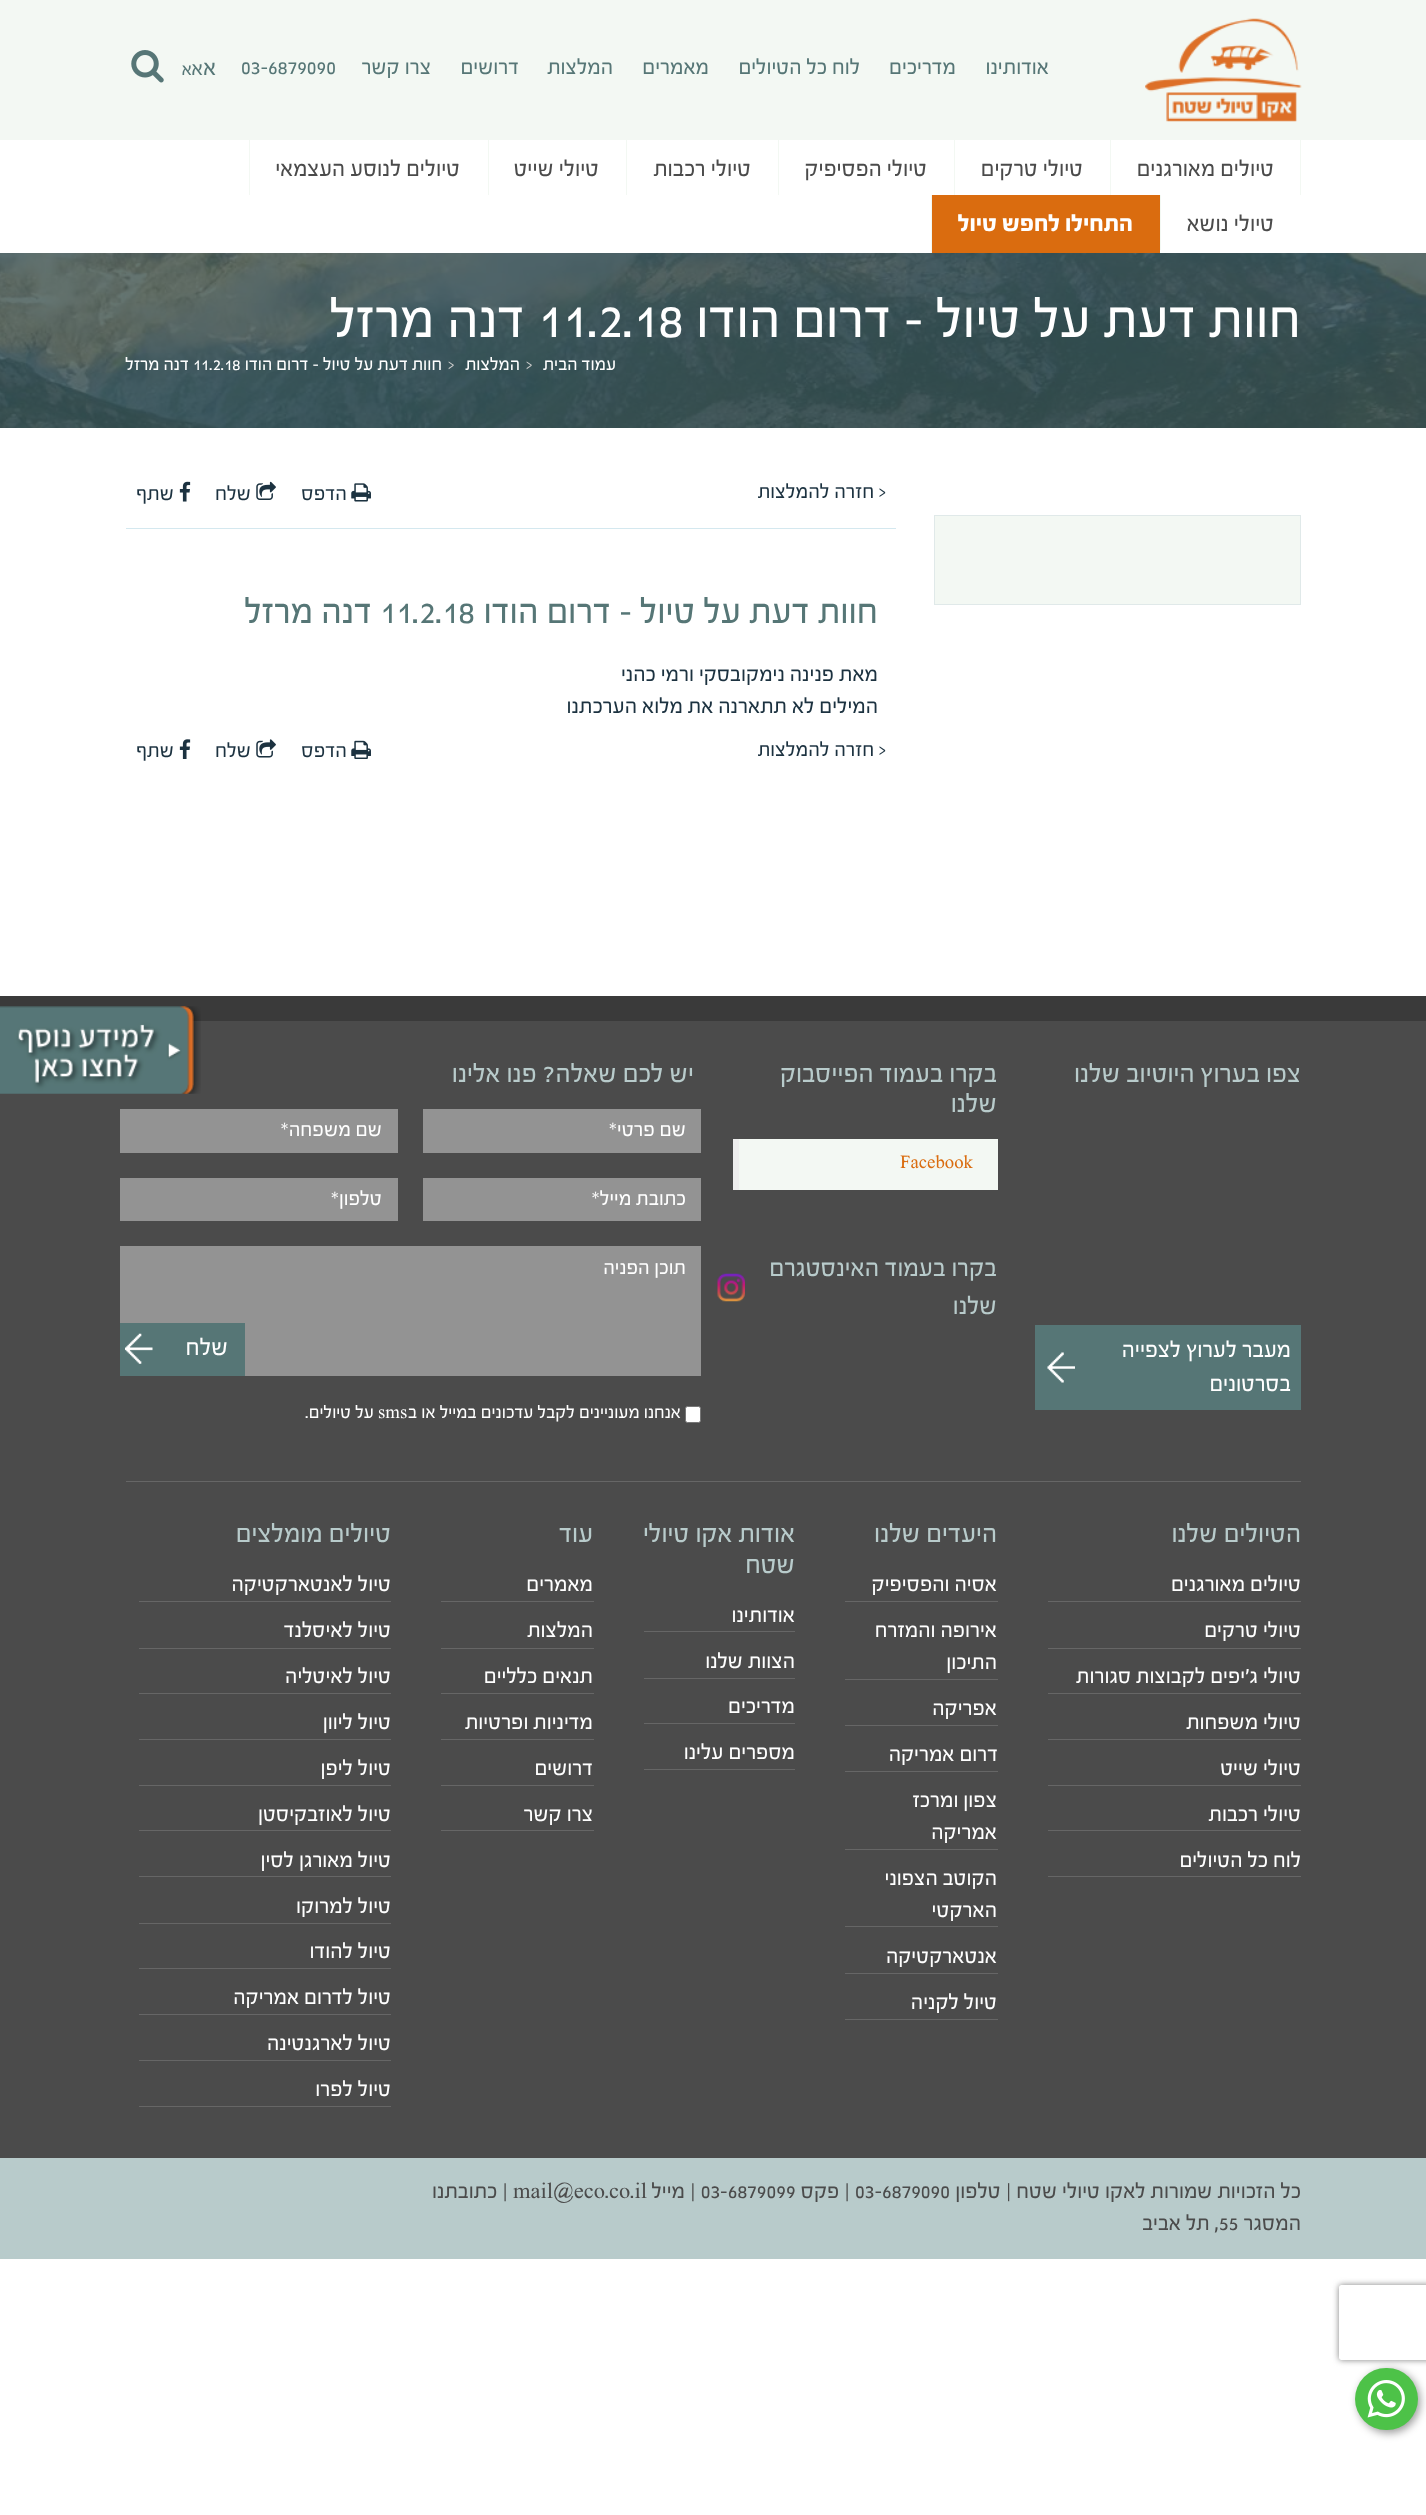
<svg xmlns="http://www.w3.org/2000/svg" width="1426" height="2515">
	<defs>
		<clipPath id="clip1"><path d="M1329 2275H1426V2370H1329ZM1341.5 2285H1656.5C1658 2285 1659 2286 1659 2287.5V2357.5C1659 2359 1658 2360 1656.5 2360H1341.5C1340 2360 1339 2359 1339 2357.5V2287.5C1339 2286 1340 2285 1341.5 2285Z" clip-rule="evenodd" /></clipPath>
	</defs>
	<rect width="100%" height="100%" fill="#FFFFFF" />
	<rect x="0" y="0" width="1426" height="140" fill="#F3F8F3" />
	<image x="1145" y="18" width="157" height="104" href="assets/img1.png" />
	<g font-family="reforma" font-size="22.5" direction="rtl" fill="#567676">
		<text x="1049" y="74">אודותינו</text>
		<text x="956" y="74">מדריכים</text>
		<text x="860" y="74">לוח כל הטיולים</text>
		<text x="709" y="74">מאמרים</text>
		<text x="613" y="74">המלצות</text>
		<text x="519" y="74">דרושים</text>
		<text x="431" y="74">צרו קשר</text>
	</g>
	<text x="241" y="74" font-family="reforma" font-size="22.5" fill="#567676">03-6879090</text>
	<text x="216" y="75" font-family="reforma" font-size="23.75" direction="rtl" fill="#567676">א</text>
	<text x="203" y="75" font-family="reforma" font-size="21.25" direction="rtl" fill="#567676">א</text>
	<text x="192" y="75" font-family="reforma" font-size="18.75" direction="rtl" fill="#567676">א</text>
	<image x="131" y="50" width="33" height="33" href="assets/img2.png" />
	<rect x="1300" y="140" width="1" height="55" fill="#F3F8F3" />
	<text x="1274" y="176" font-family="reforma" font-size="23.75" direction="rtl" fill="#4B4B4B">טיולים מאורגנים</text>
	<rect x="1110" y="140" width="1" height="55" fill="#F3F8F3" />
	<text x="1083" y="176" font-family="reforma" font-size="23.75" direction="rtl" fill="#4B4B4B">טיולי טרקים</text>
	<rect x="954" y="140" width="1" height="55" fill="#F3F8F3" />
	<text x="927" y="176" font-family="reforma" font-size="23.75" direction="rtl" fill="#4B4B4B">טיולי הפסיפיק</text>
	<rect x="778" y="140" width="1" height="55" fill="#F3F8F3" />
	<text x="751" y="176" font-family="reforma" font-size="23.75" direction="rtl" fill="#4B4B4B">טיולי רכבות</text>
	<rect x="626" y="140" width="1" height="55" fill="#F3F8F3" />
	<text x="599" y="176" font-family="reforma" font-size="23.75" direction="rtl" fill="#4B4B4B">טיולי שייט</text>
	<rect x="488" y="140" width="1" height="55" fill="#F3F8F3" />
	<text x="460" y="176" font-family="reforma" font-size="23.75" direction="rtl" fill="#4B4B4B">טיולים לנוסע העצמאי</text>
	<rect x="249" y="140" width="1" height="55" fill="#F3F8F3" />
	<text x="1274" y="231" font-family="reforma" font-size="23.75" direction="rtl" fill="#4B4B4B">טיולי נושא</text>
	<rect x="1160" y="195" width="1" height="55" fill="#F3F8F3" />
	<rect x="932" y="195" width="228" height="58" fill="#DA6C0F" />
	<text x="1133" y="231" font-family="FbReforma" font-size="25" direction="rtl" fill="#FFFFFF">התחילו לחפש טיול</text>
	<rect x="931" y="195" width="1" height="58" fill="#F3F8F3" />
	<image x="0" y="253" width="1426" height="175" href="assets/img3.png" />
	<text x="1301" y="337" font-family="reforma" font-size="57.5" direction="rtl" fill="#FFFFFF">חוות דעת על טיול – דרום הודו</text>
	<text x="538" y="337" font-family="reforma" font-size="57.5" fill="#FFFFFF">11.2.18</text>
	<text x="525" y="337" font-family="reforma" font-size="57.5" direction="rtl" fill="#FFFFFF">דנה מרזל</text>
	<text x="616" y="370" font-family="reforma" font-size="18.75" direction="rtl" fill="#FFFFFF">עמוד הבית</text>
	<text x="526" y="370" font-family="reforma" font-size="18.75" fill="#CCCCCC">&gt;</text>
	<text x="520" y="370" font-family="reforma" font-size="18.75" direction="rtl" fill="#FFFFFF">המלצות</text>
	<text x="448" y="370" font-family="reforma" font-size="18.75" fill="#CCCCCC">&gt;</text>
	<text x="442" y="370" font-family="reforma" font-size="18.75" direction="rtl" fill="#FFFFFF">חוות דעת על טיול – דרום הודו</text>
	<text x="193" y="370" font-family="reforma" font-size="18.75" fill="#FFFFFF">11.2.18</text>
	<text x="189" y="370" font-family="reforma" font-size="18.75" direction="rtl" fill="#FFFFFF">דנה מרזל</text>
	<rect x="934.5" y="515.5" width="366" height="89" fill="#F3F8F3" stroke="#E0E9E9" />
	<text x="886" y="498" font-family="reforma" font-size="21.25" direction="rtl" fill="#1C3240">&lt; חזרה להמלצות</text>
	<image x="351" y="483" width="20" height="19" href="assets/img4.png" />
	<text x="347" y="500" font-family="reforma" font-size="21.25" direction="rtl" fill="#1C3240">הדפס</text>
	<image x="256" y="481" width="20" height="19" href="assets/img5.png" />
	<text x="251" y="500" font-family="reforma" font-size="21.25" direction="rtl" fill="#1C3240">שלח</text>
	<image x="179" y="481" width="12" height="21" href="assets/img6.png" />
	<text x="174" y="500" font-family="reforma" font-size="21.25" direction="rtl" fill="#1C3240">שתף</text>
	<rect x="126" y="528" width="770" height="1" fill="#D4E8EF" />
	<text x="878" y="623" font-family="reforma" font-size="37.5" direction="rtl" fill="#567676">חוות דעת על טיול – דרום הודו</text>
	<text x="380" y="623" font-family="reforma" font-size="37.5" fill="#567676">11.2.18</text>
	<text x="372" y="623" font-family="reforma" font-size="37.5" direction="rtl" fill="#567676">דנה מרזל</text>
	<g font-family="reforma" font-size="22.5" direction="rtl" fill="#1C3240">
		<text x="878" y="681">מאת פנינה נימקובסקי ורמי כהני</text>
		<text x="878" y="713">המילים לא תתארנה את מלוא הערכתנו</text>
	</g>
	<text x="886" y="756" font-family="reforma" font-size="21.25" direction="rtl" fill="#1C3240">&lt; חזרה להמלצות</text>
	<image x="351" y="740" width="20" height="19" href="assets/img7.png" />
	<text x="347" y="757" font-family="reforma" font-size="21.25" direction="rtl" fill="#1C3240">הדפס</text>
	<image x="256" y="739" width="20" height="19" href="assets/img8.png" />
	<text x="251" y="757" font-family="reforma" font-size="21.25" direction="rtl" fill="#1C3240">שלח</text>
	<image x="179" y="739" width="12" height="20" href="assets/img9.png" />
	<text x="174" y="757" font-family="reforma" font-size="21.25" direction="rtl" fill="#1C3240">שתף</text>
	<rect x="0" y="1021" width="1426" height="1137" fill="#4B4B4B" />
	<rect x="0" y="996" width="1426" height="25" fill="#3A3A3A" />
	<image x="0" y="1006" width="201" height="88" href="assets/img10.png" />
	<text x="1301" y="1082" font-family="reforma" font-size="27.5" direction="rtl" fill="#B8CBCB">צפו בערוץ היוטיוב שלנו</text>
	<rect x="1035" y="1325" width="266" height="85" fill="#567676" />
	<image x="1047" y="1352" width="28" height="31" href="assets/img11.png" />
	<g font-family="reforma" font-size="23.75" direction="rtl" fill="#FFFFFF">
		<text x="1291" y="1357">מעבר לערוץ לצפייה</text>
		<text x="1291" y="1391">בסרטונים</text>
	</g>
	<g font-family="reforma" font-size="27.5" direction="rtl" fill="#B8CBCB">
		<text x="997" y="1082">בקרו בעמוד הפייסבוק</text>
		<text x="997" y="1112">שלנו</text>
	</g>
	<rect x="739" y="1139" width="259" height="51" fill="#F3F8F3" />
	<rect x="733" y="1139" width="6" height="51" fill="#EEEEEE" />
	<text x="900" y="1168" font-family="reforma" font-size="18.75" fill="#DA6C0F">Facebook</text>
	<g font-family="reforma" font-size="26.25" direction="rtl" fill="#B8CBCB">
		<text x="997" y="1276">בקרו בעמוד האינסטגרם</text>
		<text x="997" y="1314">שלנו</text>
	</g>
	<image x="717" y="1273" width="28" height="29" href="assets/img12.png" />
	<text x="694" y="1082" font-family="reforma" font-size="27.5" direction="rtl" fill="#B8CBCB">יש לכם שאלה? פנו אלינו</text>
	<rect x="423" y="1109" width="278" height="44" fill="#939393" />
	<text x="686" y="1136" font-family="reforma" font-size="21.25" direction="rtl" fill="#FFFFFF">שם פרטי*</text>
	<rect x="120" y="1109" width="278" height="44" fill="#939393" />
	<text x="382" y="1136" font-family="reforma" font-size="21.25" direction="rtl" fill="#FFFFFF">שם משפחה*</text>
	<rect x="423" y="1178" width="278" height="43" fill="#939393" />
	<text x="686" y="1205" font-family="reforma" font-size="21.25" direction="rtl" fill="#FFFFFF">כתובת מייל*</text>
	<rect x="120" y="1178" width="278" height="43" fill="#939393" />
	<text x="382" y="1205" font-family="reforma" font-size="21.25" direction="rtl" fill="#FFFFFF">טלפון*</text>
	<rect x="120" y="1246" width="581" height="130" fill="#939393" />
	<text x="686" y="1274" font-family="reforma" font-size="21.25" direction="rtl" fill="#FFFFFF">תוכן הפניה</text>
	<rect x="120" y="1323" width="125" height="53" fill="#567676" />
	<image x="125" y="1333" width="28" height="31" href="assets/img13.png" />
	<text x="228" y="1355" font-family="reforma" font-size="25" direction="rtl" fill="#FFFFFF">שלח</text>
	<rect x="685.5" y="1406.5" width="15" height="16" rx="2" fill="#FFFFFF" stroke="#767676" />
	<text x="681" y="1418" font-family="reforma" font-size="18.75" direction="rtl" fill="#FFFFFF">אנחנו מעוניינים לקבל עדכונים במייל או ב</text>
	<text x="378" y="1418" font-family="reforma" font-size="18.75" fill="#FFFFFF">sms</text>
	<text x="374" y="1418" font-family="reforma" font-size="18.75" direction="rtl" fill="#FFFFFF">על טיולים.</text>
	<rect x="126" y="1481" width="1175" height="1" fill="#666666" />
	<text x="1301" y="1542" font-family="reforma" font-size="27.5" direction="rtl" fill="#B8CBCB">הטיולים שלנו</text>
	<rect x="1048" y="1601" width="253" height="1" fill="#666666" />
	<text x="1301" y="1591" font-family="reforma" font-size="22.5" direction="rtl" fill="#FFFFFF">טיולים מאורגנים</text>
	<rect x="1048" y="1648" width="253" height="1" fill="#666666" />
	<text x="1301" y="1637" font-family="reforma" font-size="22.5" direction="rtl" fill="#FFFFFF">טיולי טרקים</text>
	<rect x="1048" y="1693" width="253" height="1" fill="#666666" />
	<text x="1301" y="1683" font-family="reforma" font-size="22.5" direction="rtl" fill="#FFFFFF">טיולי ג'יפים לקבוצות סגורות</text>
	<rect x="1048" y="1739" width="253" height="1" fill="#666666" />
	<text x="1301" y="1729" font-family="reforma" font-size="22.5" direction="rtl" fill="#FFFFFF">טיולי משפחות</text>
	<rect x="1048" y="1785" width="253" height="1" fill="#666666" />
	<text x="1301" y="1775" font-family="reforma" font-size="22.5" direction="rtl" fill="#FFFFFF">טיולי שייט</text>
	<rect x="1048" y="1830" width="253" height="1" fill="#666666" />
	<text x="1301" y="1821" font-family="reforma" font-size="22.5" direction="rtl" fill="#FFFFFF">טיולי רכבות</text>
	<rect x="1048" y="1876" width="253" height="1" fill="#666666" />
	<text x="1301" y="1867" font-family="reforma" font-size="22.5" direction="rtl" fill="#FFFFFF">לוח כל הטיולים</text>
	<text x="997" y="1542" font-family="reforma" font-size="27.5" direction="rtl" fill="#B8CBCB">היעדים שלנו</text>
	<rect x="845" y="1601" width="153" height="1" fill="#666666" />
	<text x="997" y="1591" font-family="reforma" font-size="22.5" direction="rtl" fill="#FFFFFF">אסיה והפסיפיק</text>
	<rect x="845" y="1679" width="153" height="1" fill="#666666" />
	<g font-family="reforma" font-size="22.5" direction="rtl" fill="#FFFFFF">
		<text x="997" y="1637">אירופה והמזרח</text>
		<text x="997" y="1669">התיכון</text>
	</g>
	<rect x="845" y="1725" width="153" height="1" fill="#666666" />
	<text x="997" y="1715" font-family="reforma" font-size="22.5" direction="rtl" fill="#FFFFFF">אפריקה</text>
	<rect x="845" y="1771" width="153" height="1" fill="#666666" />
	<text x="998" y="1761" font-family="reforma" font-size="22.5" direction="rtl" fill="#FFFFFF">דרום אמריקה</text>
	<rect x="845" y="1849" width="153" height="1" fill="#666666" />
	<g font-family="reforma" font-size="22.5" direction="rtl" fill="#FFFFFF">
		<text x="997" y="1807">צפון ומרכז</text>
		<text x="997" y="1839">אמריקה</text>
	</g>
	<rect x="845" y="1926" width="153" height="1" fill="#666666" />
	<g font-family="reforma" font-size="22.5" direction="rtl" fill="#FFFFFF">
		<text x="997" y="1885">הקוטב הצפוני</text>
		<text x="997" y="1917">הארקטי</text>
	</g>
	<rect x="845" y="1973" width="153" height="1" fill="#666666" />
	<text x="997" y="1963" font-family="reforma" font-size="22.5" direction="rtl" fill="#FFFFFF">אנטארקטיקה</text>
	<rect x="845" y="2019" width="153" height="1" fill="#666666" />
	<text x="997" y="2009" font-family="reforma" font-size="22.5" direction="rtl" fill="#FFFFFF">טיול לקניה</text>
	<g font-family="reforma" font-size="27.5" direction="rtl" fill="#B8CBCB">
		<text x="795" y="1542">אודות אקו טיולי</text>
		<text x="795" y="1573">שטח</text>
	</g>
	<rect x="644" y="1631" width="151" height="1" fill="#666666" />
	<text x="795" y="1622" font-family="reforma" font-size="22.5" direction="rtl" fill="#FFFFFF">אודותינו</text>
	<rect x="644" y="1678" width="151" height="1" fill="#666666" />
	<text x="795" y="1668" font-family="reforma" font-size="22.5" direction="rtl" fill="#FFFFFF">הצוות שלנו</text>
	<rect x="644" y="1723" width="151" height="1" fill="#666666" />
	<text x="795" y="1713" font-family="reforma" font-size="22.5" direction="rtl" fill="#FFFFFF">מדריכים</text>
	<rect x="644" y="1769" width="151" height="1" fill="#666666" />
	<text x="795" y="1759" font-family="reforma" font-size="22.5" direction="rtl" fill="#FFFFFF">מספרים עלינו</text>
	<text x="593" y="1542" font-family="reforma" font-size="27.5" direction="rtl" fill="#B8CBCB">עוד</text>
	<rect x="441" y="1601" width="153" height="1" fill="#666666" />
	<text x="593" y="1591" font-family="reforma" font-size="22.5" direction="rtl" fill="#FFFFFF">מאמרים</text>
	<rect x="441" y="1648" width="153" height="1" fill="#666666" />
	<text x="593" y="1637" font-family="reforma" font-size="22.5" direction="rtl" fill="#FFFFFF">המלצות</text>
	<rect x="441" y="1693" width="153" height="1" fill="#666666" />
	<text x="593" y="1683" font-family="reforma" font-size="22.5" direction="rtl" fill="#FFFFFF">תנאים כלליים</text>
	<rect x="441" y="1739" width="153" height="1" fill="#666666" />
	<text x="593" y="1729" font-family="reforma" font-size="22.5" direction="rtl" fill="#FFFFFF">מדיניות ופרטיות</text>
	<rect x="441" y="1785" width="153" height="1" fill="#666666" />
	<text x="593" y="1775" font-family="reforma" font-size="22.5" direction="rtl" fill="#FFFFFF">דרושים</text>
	<rect x="441" y="1830" width="153" height="1" fill="#666666" />
	<text x="593" y="1821" font-family="reforma" font-size="22.5" direction="rtl" fill="#FFFFFF">צרו קשר</text>
	<text x="391" y="1542" font-family="reforma" font-size="27.5" direction="rtl" fill="#B8CBCB">טיולים מומלצים</text>
	<rect x="139" y="1601" width="252" height="1" fill="#666666" />
	<text x="391" y="1591" font-family="reforma" font-size="22.5" direction="rtl" fill="#FFFFFF">טיול לאנטארקטיקה</text>
	<rect x="139" y="1648" width="252" height="1" fill="#666666" />
	<text x="391" y="1637" font-family="reforma" font-size="22.5" direction="rtl" fill="#FFFFFF">טיול לאיסלנד</text>
	<rect x="139" y="1693" width="252" height="1" fill="#666666" />
	<text x="391" y="1683" font-family="reforma" font-size="22.5" direction="rtl" fill="#FFFFFF">טיול לאיטליה</text>
	<rect x="139" y="1739" width="252" height="1" fill="#666666" />
	<text x="391" y="1729" font-family="reforma" font-size="22.5" direction="rtl" fill="#FFFFFF">טיול ליוון</text>
	<rect x="139" y="1785" width="252" height="1" fill="#666666" />
	<text x="391" y="1775" font-family="reforma" font-size="22.5" direction="rtl" fill="#FFFFFF">טיול ליפן</text>
	<rect x="139" y="1830" width="252" height="1" fill="#666666" />
	<text x="391" y="1821" font-family="reforma" font-size="22.5" direction="rtl" fill="#FFFFFF">טיול לאוזבקיסטן</text>
	<rect x="139" y="1876" width="252" height="1" fill="#666666" />
	<text x="391" y="1867" font-family="reforma" font-size="22.5" direction="rtl" fill="#FFFFFF">טיול מאורגן לסין</text>
	<rect x="139" y="1923" width="252" height="1" fill="#666666" />
	<text x="391" y="1913" font-family="reforma" font-size="22.5" direction="rtl" fill="#FFFFFF">טיול למרוקו</text>
	<rect x="139" y="1968" width="252" height="1" fill="#666666" />
	<text x="391" y="1958" font-family="reforma" font-size="22.5" direction="rtl" fill="#FFFFFF">טיול להודו</text>
	<rect x="139" y="2014" width="252" height="1" fill="#666666" />
	<text x="391" y="2004" font-family="reforma" font-size="22.5" direction="rtl" fill="#FFFFFF">טיול לדרום אמריקה</text>
	<rect x="139" y="2060" width="252" height="1" fill="#666666" />
	<text x="391" y="2050" font-family="reforma" font-size="22.5" direction="rtl" fill="#FFFFFF">טיול לארגנטינה</text>
	<rect x="139" y="2106" width="252" height="1" fill="#666666" />
	<text x="391" y="2096" font-family="reforma" font-size="22.5" direction="rtl" fill="#FFFFFF">טיול לפרו</text>
	<rect x="0" y="2158" width="1426" height="101" fill="#B8CBCB" />
	<text x="1301" y="2198" font-family="reforma" font-size="22.5" direction="rtl" fill="#4B4B4B">כל הזכויות שמורות לאקו טיולי שטח | טלפון</text>
	<text x="855" y="2198" font-family="reforma" font-size="22.5" fill="#4B4B4B">03-6879090</text>
	<text x="850" y="2198" font-family="reforma" font-size="22.5" direction="rtl" fill="#4B4B4B">| פקס</text>
	<text x="690" y="2198" font-family="reforma" font-size="22.5" fill="#4B4B4B">| 03-6879099</text>
	<text x="685" y="2198" font-family="reforma" font-size="22.5" direction="rtl" fill="#4B4B4B">מייל</text>
	<text x="513" y="2198" font-family="reforma" font-size="22.5" fill="#4B4B4B">mail@eco.co.il</text>
	<g font-family="reforma" font-size="22.5" direction="rtl" fill="#4B4B4B">
		<text x="508" y="2198">| כתובתנו</text>
		<text x="1301" y="2230">המסגר</text>
	</g>
	<text x="1219" y="2230" font-family="reforma" font-size="22.5" fill="#4B4B4B">55</text>
	<text x="1219" y="2230" font-family="reforma" font-size="22.5" direction="rtl" fill="#4B4B4B">, תל אביב</text>
	<g clip-path="url(#clip1)">
		<rect x="1339" y="2285" width="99" height="75" rx="2.5" fill="#808080" filter="blur(3px)" />
	</g>
	<rect x="1358" y="2370" width="62" height="63" rx="31" fill="#000000" fill-opacity="0.4" filter="blur(4px)" />
	<rect x="1355" y="2368" width="63" height="62" rx="31" fill="#4DC248" />
	<image x="1367" y="2380" width="38" height="38" href="assets/img14.png" />
</svg>
